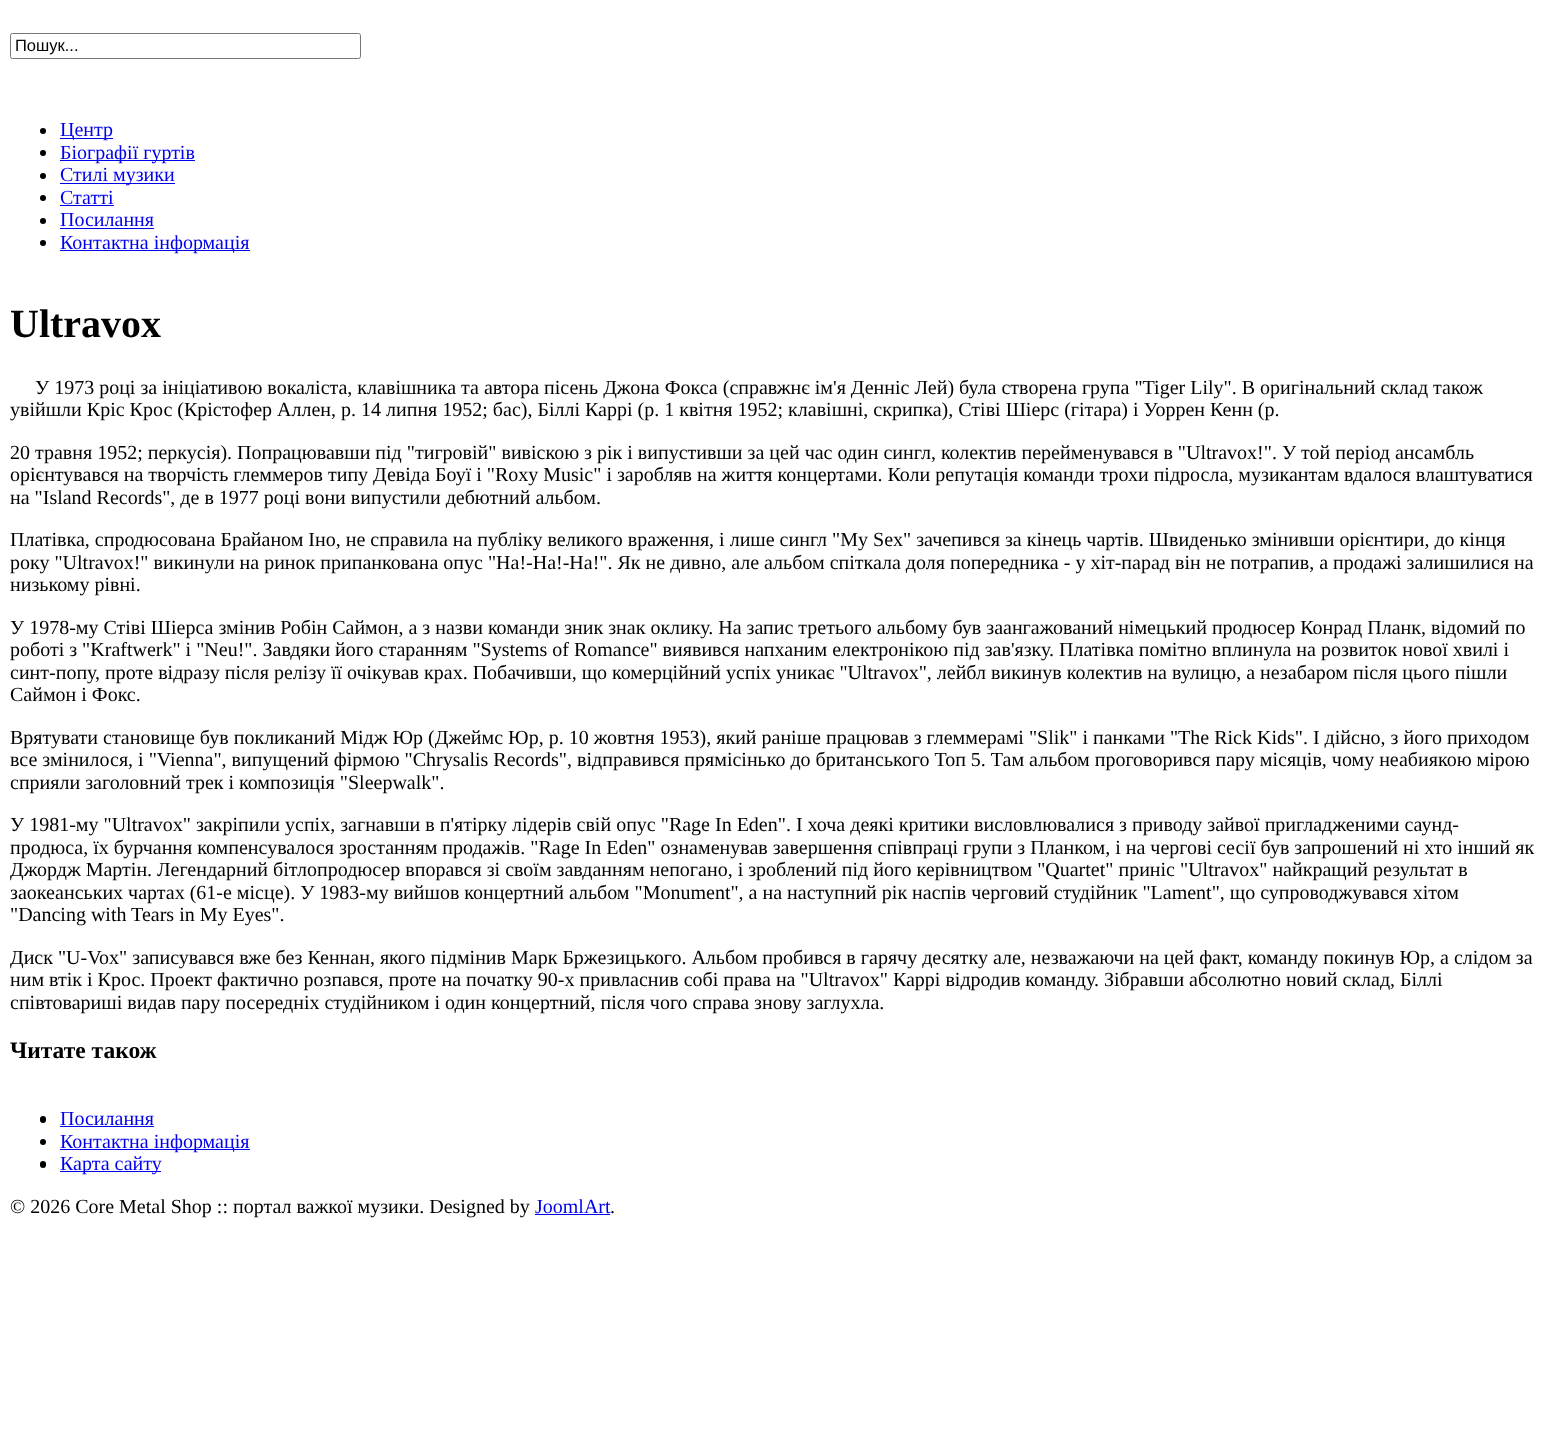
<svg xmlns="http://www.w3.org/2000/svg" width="1546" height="1439">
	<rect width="100%" height="100%" fill="#FFFFFF" />
	<rect x="10.5" y="33.5" width="350" height="25" rx="2" fill="none" stroke="#767676" />
	<text x="15" y="51" font-family="Liberation Sans" font-size="16.5" fill="#000000">Пошук...</text>
	<circle cx="43" cy="131" r="3" fill="#000000" />
	<rect x="60" y="138" width="53" height="1" fill="#0000EE" />
	<text x="60" y="136" font-family="Liberation Serif" font-size="20" fill="#0000EE">Центр</text>
	<circle cx="43" cy="153" r="3" fill="#000000" />
	<rect x="60" y="160" width="135" height="1" fill="#0000EE" />
	<text x="60" y="159" font-family="Liberation Serif" font-size="20" fill="#0000EE">Біографії гуртів</text>
	<circle cx="43" cy="176" r="3" fill="#000000" />
	<rect x="60" y="183" width="115" height="1" fill="#0000EE" />
	<text x="60" y="181" font-family="Liberation Serif" font-size="20" fill="#0000EE">Стилі музики</text>
	<circle cx="43" cy="198" r="3" fill="#000000" />
	<text x="60" y="204" font-family="Liberation Serif" font-size="20" fill="#0000EE">Статті</text>
	<rect x="60" y="205" width="54" height="1" fill="#0000EE" />
	<circle cx="43" cy="221" r="3" fill="#000000" />
	<text x="60" y="226" font-family="Liberation Serif" font-size="20" fill="#0000EE">Посилання</text>
	<rect x="60" y="228" width="94" height="1" fill="#0000EE" />
	<circle cx="43" cy="243" r="3" fill="#000000" />
	<rect x="60" y="250" width="190" height="1" fill="#0000EE" />
	<text x="60" y="249" font-family="Liberation Serif" font-size="20" fill="#0000EE">Контактна інформація</text>
	<text x="10" y="337" font-family="Liberation Serif" font-size="40" font-weight="700" fill="#000000">Ultravox</text>
	<g font-family="Liberation Serif" font-size="20" fill="#000000">
		<text x="35" y="394">У 1973 році за ініціативою вокаліста, клавішника та автора пісень Джона Фокса (справжнє ім'я Денніс Лей) була створена група "Tiger Lily". В оригінальний склад також</text>
		<text x="10" y="416">увійшли Кріс Крос (Крістофер Аллен, р. 14 липня 1952; бас), Біллі Каррі (р. 1 квітня 1952; клавішні, скрипка), Стіві Шіерс (гітара) і Уоррен Кенн (р.</text>
		<text x="10" y="459">20 травня 1952; перкусія). Попрацювавши під "тигровій" вивіскою з рік і випустивши за цей час один сингл, колектив перейменувався в "Ultravox!". У той період ансамбль</text>
		<text x="10" y="481">орієнтувався на творчість глеммеров типу Девіда Боуї і "Roxy Music" і заробляв на життя концертами. Коли репутація команди трохи підросла, музикантам вдалося влаштуватися</text>
		<text x="10" y="504">на "Island Records", де в 1977 році вони випустили дебютний альбом.</text>
		<text x="10" y="546">Платівка, спродюсована Брайаном Іно, не справила на публіку великого враження, і лише сингл "My Sex" зачепився за кінець чартів. Швиденько змінивши орієнтири, до кінця</text>
		<text x="10" y="569">року "Ultravox!" викинули на ринок припанкована опус "Ha!-Ha!-Ha!". Як не дивно, але альбом спіткала доля попередника - у хіт-парад він не потрапив, а продажі залишилися на</text>
		<text x="10" y="591">низькому рівні.</text>
		<text x="10" y="634">У 1978-му Стіві Шіерса змінив Робін Саймон, а з назви команди зник знак оклику. На запис третього альбому був заангажований німецький продюсер Конрад Планк, відомий по</text>
		<text x="10" y="656">роботі з "Kraftwerk" і "Neu!". Завдяки його старанням "Systems of Romance" виявився напханим електронікою під зав'язку. Платівка помітно вплинула на розвиток нової хвилі і</text>
		<text x="10" y="679">синт-попу, проте відразу після релізу її очікував крах. Побачивши, що комерційний успіх уникає "Ultravox", лейбл викинув колектив на вулицю, а незабаром після цього пішли</text>
		<text x="10" y="701">Саймон і Фокс.</text>
		<text x="10" y="744">Врятувати становище був покликаний Мідж Юр (Джеймс Юр, р. 10 жовтня 1953), який раніше працював з глеммерамі "Slik" і панками "The Rick Kids". І дійсно, з його приходом</text>
		<text x="10" y="766">все змінилося, і "Vienna", випущений фірмою "Chrysalis Records", відправився прямісінько до британського Топ 5. Там альбом проговорився пару місяців, чому неабиякою мірою</text>
		<text x="10" y="789">сприяли заголовний трек і композиція "Sleepwalk".</text>
		<text x="10" y="831">У 1981-му "Ultravox" закріпили успіх, загнавши в п'ятірку лідерів свій опус "Rage In Eden". І хоча деякі критики висловлювалися з приводу зайвої пригладженими саунд-</text>
		<text x="10" y="854">продюса, їх бурчання компенсувалося зростанням продажів. "Rage In Eden" ознаменував завершення співпраці групи з Планком, і на чергові сесії був запрошений ні хто інший як</text>
		<text x="10" y="876">Джордж Мартін. Легендарний бітлопродюсер впорався зі своїм завданням непогано, і зроблений під його керівництвом "Quartet" приніс "Ultravox" найкращий результат в</text>
		<text x="10" y="899">заокеанських чартах (61-е місце). У 1983-му вийшов концертний альбом "Monument", а на наступний рік наспів черговий студійник "Lament", що супроводжувався хітом</text>
		<text x="10" y="921">"Dancing with Tears in My Eyes".</text>
		<text x="10" y="964">Диск "U-Vox" записувався вже без Кеннан, якого підмінив Марк Бржезицького. Альбом пробився в гарячу десятку але, незважаючи на цей факт, команду покинув Юр, а слідом за</text>
		<text x="10" y="986">ним втік і Крос. Проект фактично розпався, проте на початку 90-х привласнив собі права на "Ultravox" Каррі відродив команду. Зібравши абсолютно новий склад, Біллі</text>
		<text x="10" y="1009">співтовариші видав пару посередніх студійником і один концертний, після чого справа знову заглухла.</text>
	</g>
	<text x="10" y="1058" font-family="Liberation Serif" font-size="23.5" font-weight="700" fill="#000000">Читате також</text>
	<rect x="40" y="1116" width="6" height="7" rx="3" fill="#000000" />
	<text x="60" y="1125" font-family="Liberation Serif" font-size="20" fill="#0000EE">Посилання</text>
	<rect x="60" y="1126" width="94" height="1" fill="#0000EE" />
	<circle cx="43" cy="1142" r="3" fill="#000000" />
	<rect x="60" y="1149" width="190" height="1" fill="#0000EE" />
	<text x="60" y="1148" font-family="Liberation Serif" font-size="20" fill="#0000EE">Контактна інформація</text>
	<rect x="40" y="1161" width="6" height="7" rx="3" fill="#000000" />
	<rect x="60" y="1171" width="101" height="1" fill="#0000EE" />
	<text x="60" y="1170" font-family="Liberation Serif" font-size="20" fill="#0000EE">Карта сайту</text>
	<text x="10" y="1213" font-family="Liberation Serif" font-size="20" fill="#000000">© 2026 Core Metal Shop :: портал важкої музики. Designed by</text>
	<text x="535" y="1213" font-family="Liberation Serif" font-size="20" fill="#0000EE">JoomlArt</text>
	<rect x="535" y="1214" width="75" height="1" fill="#0000EE" />
	<text x="610" y="1213" font-family="Liberation Serif" font-size="20" fill="#000000">.</text>
</svg>
